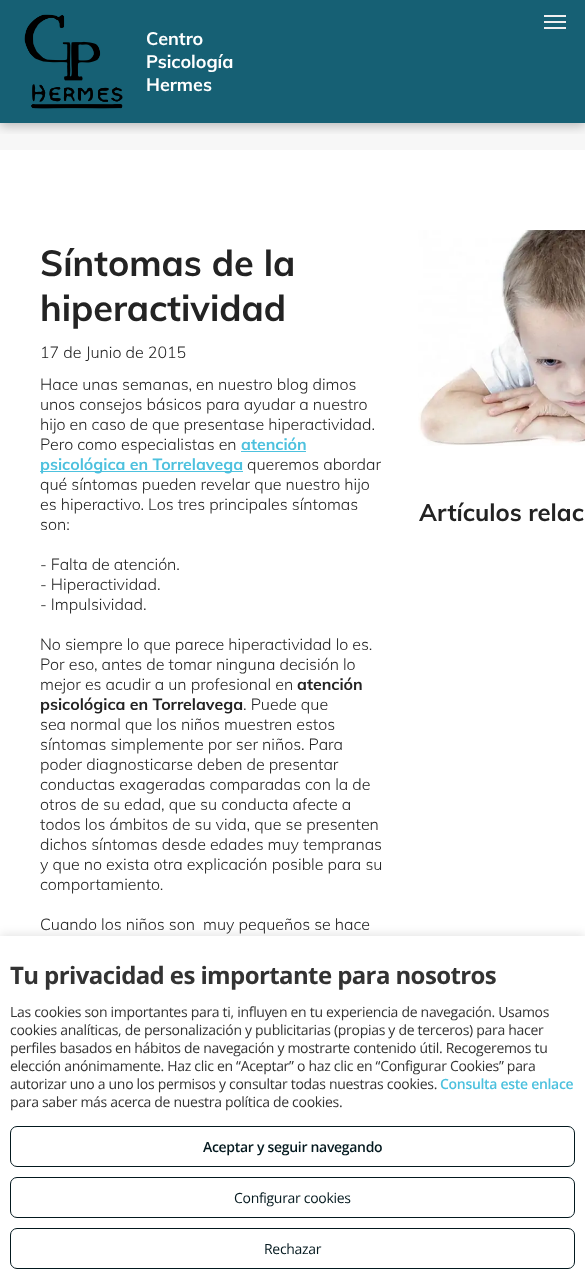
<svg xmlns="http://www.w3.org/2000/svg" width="585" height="1284">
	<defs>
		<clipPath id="clip1"><rect x="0" y="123" width="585" height="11" /></clipPath>
	</defs>
	<rect width="100%" height="100%" fill="#FFFFFF" />
	<rect x="0" y="0" width="585" height="123" fill="#166074" />
	<rect x="0" y="123" width="585" height="27" fill="#F7F7F7" />
	<g clip-path="url(#clip1)">
		<rect x="0" y="3" width="585" height="123" fill="#000000" fill-opacity="0.25" filter="blur(5.5px)" />
	</g>
	<rect x="544" y="15" width="22" height="2" fill="#F0F0F0" />
	<rect x="544" y="21" width="22" height="2" fill="#F0F0F0" />
	<rect x="544" y="27" width="22" height="2" fill="#F0F0F0" />
	<image x="24" y="14" width="99" height="95" href="assets/img1.png" />
	<g font-family="Muli" font-size="18" font-weight="700" fill="#FFFFFF">
		<text x="146" y="45">Centro</text>
		<text x="146" y="68">Psicología</text>
		<text x="146" y="91">Hermes</text>
	</g>
	<g font-family="Muli" font-size="36" font-weight="700" fill="#232323">
		<text x="40" y="276">Síntomas de la</text>
		<text x="40" y="321">hiperactividad</text>
	</g>
	<g font-family="Muli" font-size="16" font-weight="300" fill="#232323">
		<text x="40" y="358">17 de Junio de 2015</text>
		<text x="40" y="390">Hace unas semanas, en nuestro blog dimos</text>
		<text x="40" y="410">unos consejos básicos para ayudar a nuestro</text>
		<text x="40" y="430">hijo en caso de que presentase hiperactividad.</text>
		<text x="40" y="450">Pero como especialistas en</text>
	</g>
	<text x="241" y="450" font-family="Muli" font-size="16" font-weight="700" fill="#4DC1DE">atención</text>
	<rect x="241" y="451" width="65" height="1" fill="#4DC1DE" />
	<rect x="40" y="471" width="203" height="1" fill="#4DC1DE" />
	<text x="40" y="470" font-family="Muli" font-size="16" font-weight="700" fill="#4DC1DE">psicológica en Torrelavega</text>
	<g font-family="Muli" font-size="16" font-weight="300" fill="#232323">
		<text x="247" y="470">queremos abordar</text>
		<text x="40" y="490">qué síntomas pueden revelar que nuestro hijo</text>
		<text x="40" y="510">es hiperactivo. Los tres principales síntomas</text>
		<text x="40" y="530">son:</text>
		<text x="40" y="570">- Falta de atención.</text>
		<text x="40" y="590">- Hiperactividad.</text>
		<text x="40" y="610">- Impulsividad.</text>
		<text x="40" y="650">No siempre lo que parece hiperactividad lo es.</text>
		<text x="40" y="670">Por eso, antes de tomar ninguna decisión lo</text>
		<text x="40" y="690">mejor es acudir a un profesional en</text>
	</g>
	<g font-family="Muli" font-size="16" font-weight="700" fill="#232323">
		<text x="297" y="690">atención</text>
		<text x="40" y="710">psicológica en Torrelavega</text>
	</g>
	<g font-family="Muli" font-size="16" font-weight="300" fill="#232323">
		<text x="243" y="710">. Puede que</text>
		<text x="40" y="730">sea normal que los niños muestren estos</text>
		<text x="40" y="750">síntomas simplemente por ser niños. Para</text>
		<text x="40" y="770">poder diagnosticarse deben de presentar</text>
		<text x="40" y="790">conductas exageradas comparadas con la de</text>
		<text x="40" y="810">otros de su edad, que su conducta afecte a</text>
		<text x="40" y="830">todos los ámbitos de su vida, que se presenten</text>
		<text x="40" y="850">dichos síntomas desde edades muy tempranas</text>
		<text x="40" y="870">y que no exista otra explicación posible para su</text>
		<text x="40" y="890">comportamiento.</text>
		<text x="40" y="930" xml:space="preserve">Cuando los niños son  muy pequeños se hace</text>
	</g>
	<image x="418" y="230" width="167" height="216" href="assets/img2.png" />
	<text x="419" y="521" font-family="Muli" font-size="24" font-weight="700" fill="#232323">Artículos relac</text>
	<rect x="0" y="934" width="585" height="348" fill="#000000" fill-opacity="0.1" filter="blur(5px)" />
	<rect x="0" y="936" width="585" height="348" fill="#FFFFFF" />
	<text x="10" y="984" font-family="Open Sans" font-size="24" font-weight="700" letter-spacing="-0.6" fill="#333333">Tu privacidad es importante para nosotros</text>
	<g font-family="Open Sans" font-size="14" letter-spacing="-0.3" fill="#333333">
		<text x="10" y="1017">Las cookies son importantes para ti, influyen en tu experiencia de navegación. Usamos</text>
		<text x="10" y="1035">cookies analíticas, de personalización y publicitarias (propias y de terceros) para hacer</text>
		<text x="10" y="1053">perfiles basados en hábitos de navegación y mostrarte contenido útil. Recogeremos tu</text>
		<text x="10" y="1071">elección anónimamente. Haz clic en “Aceptar” o haz clic en “Configurar Cookies” para</text>
		<text x="10" y="1089">autorizar uno a uno los permisos y consultar todas nuestras cookies.</text>
	</g>
	<text x="440" y="1089" font-family="Open Sans" font-size="14" font-weight="600" letter-spacing="-0.3" fill="#4DC1DE">Consulta este enlace</text>
	<text x="10" y="1107" font-family="Open Sans" font-size="14" letter-spacing="-0.3" fill="#333333">para saber más acerca de nuestra política de cookies.</text>
	<rect x="10.5" y="1126.5" width="564" height="40" rx="6.5" fill="none" stroke="#03181E" />
	<text x="203" y="1152" font-family="Open Sans" font-size="14" font-weight="600" letter-spacing="-0.3" fill="#03181E">Aceptar y seguir navegando</text>
	<rect x="10.5" y="1177.5" width="564" height="40" rx="6.5" fill="none" stroke="#03181E" />
	<text x="234" y="1203" font-family="Open Sans" font-size="14" letter-spacing="-0.3" fill="#03181E">Configurar cookies</text>
	<rect x="10.5" y="1228.5" width="564" height="40" rx="6.5" fill="none" stroke="#03181E" />
	<text x="264" y="1254" font-family="Open Sans" font-size="14" letter-spacing="-0.3" fill="#03181E">Rechazar</text>
</svg>
